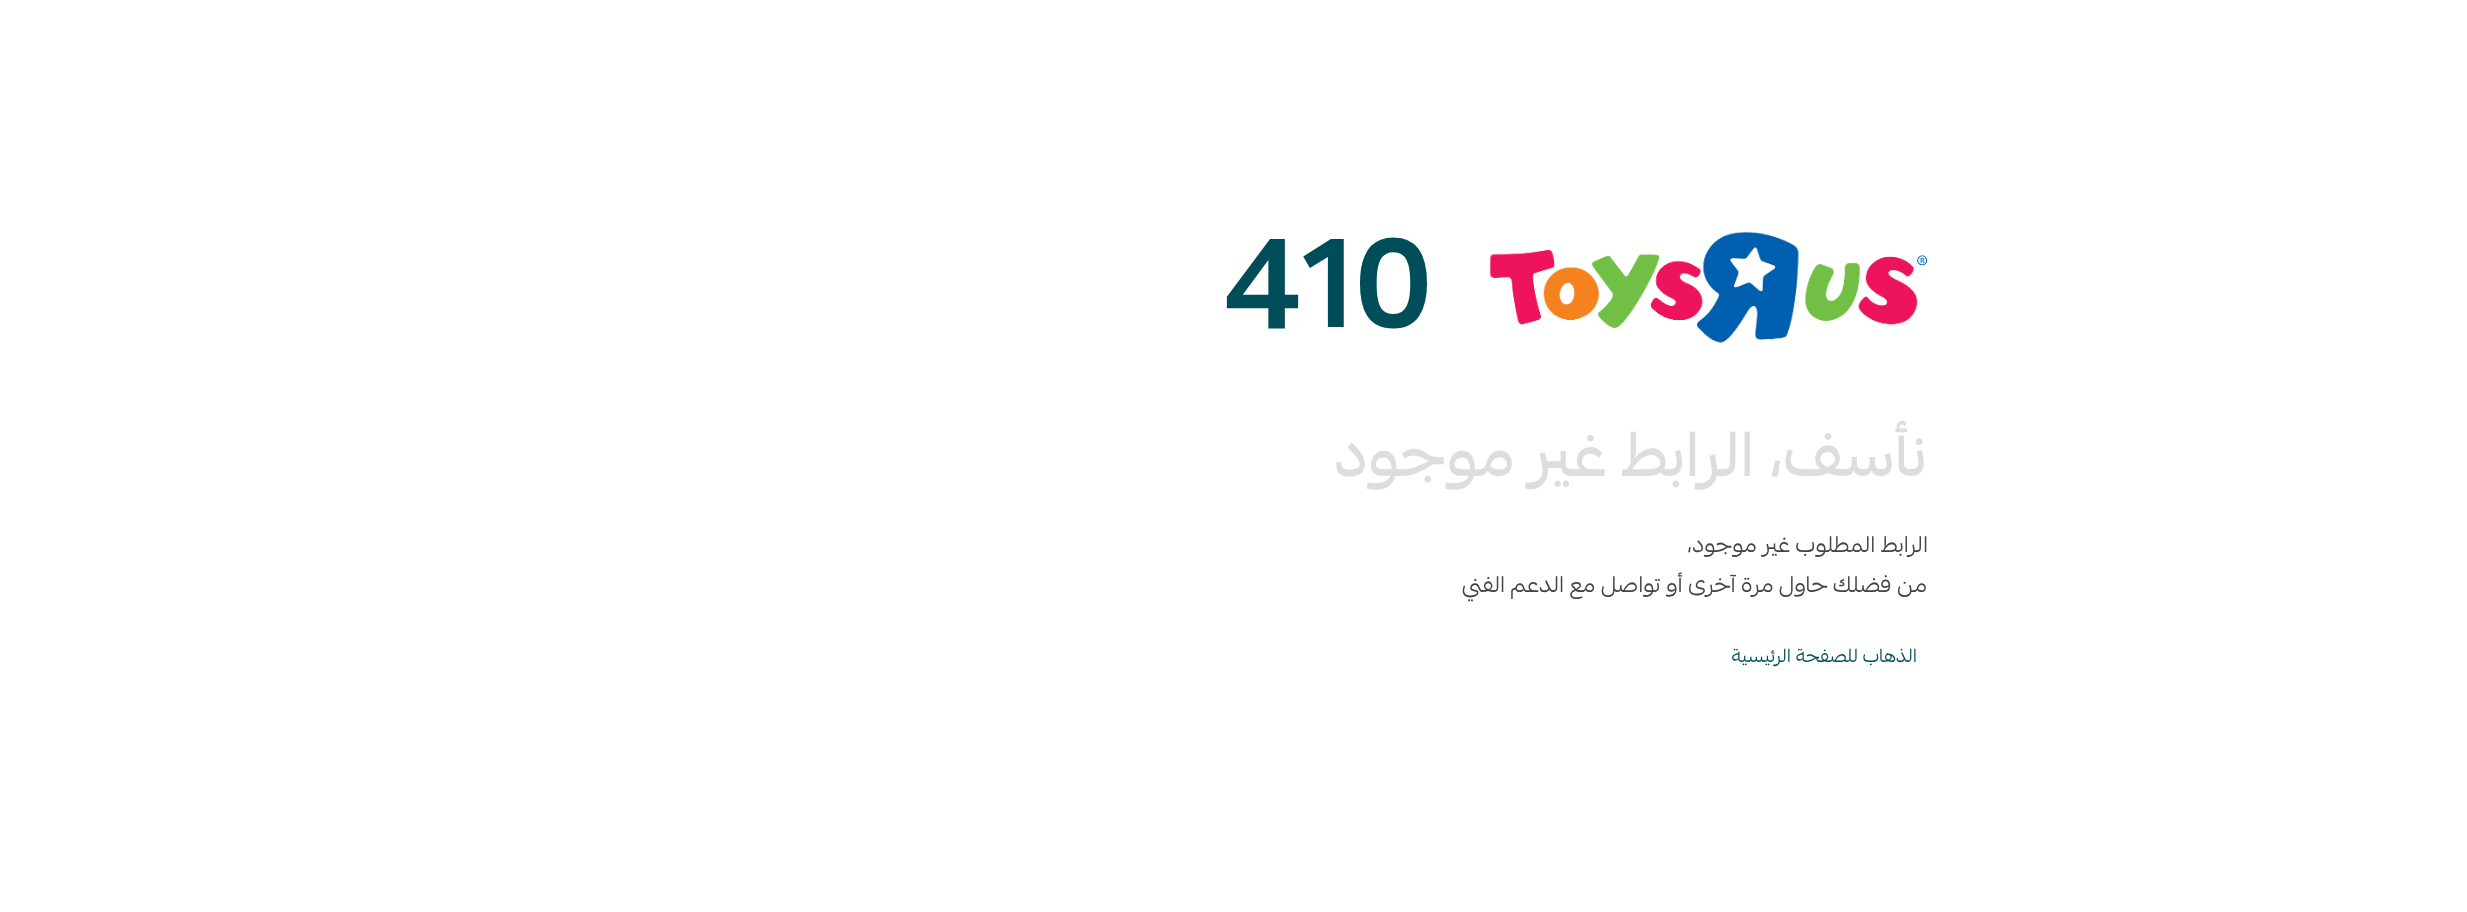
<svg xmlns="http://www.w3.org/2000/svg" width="2467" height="912">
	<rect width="100%" height="100%" fill="#FFFFFF" />
	<image x="1489" y="231" width="438" height="112" href="assets/img1.png" />
	<text x="1224" y="327" font-family="'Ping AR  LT'" font-size="125" font-weight="700" fill="#004D5A">410</text>
	<text x="1927" y="476" font-family="'Ping AR  LT'" font-size="62.5" font-weight="500" direction="rtl" fill="#DDDDDD">نأسف، الرابط غير موجود</text>
	<g font-family="'Ping AR  LT'" font-size="22.5" direction="rtl" fill="#444444">
		<text x="1928" y="552">الرابط المطلوب غير موجود،</text>
		<text x="1927" y="592">من فضلك حاول مرة آخرى أو تواصل مع الدعم الفني</text>
	</g>
	<text x="1917" y="662" font-family="'Ping AR  LT'" font-size="18.75" direction="rtl" fill="#004D5A">الذهاب للصفحة الرئيسية</text>
</svg>
